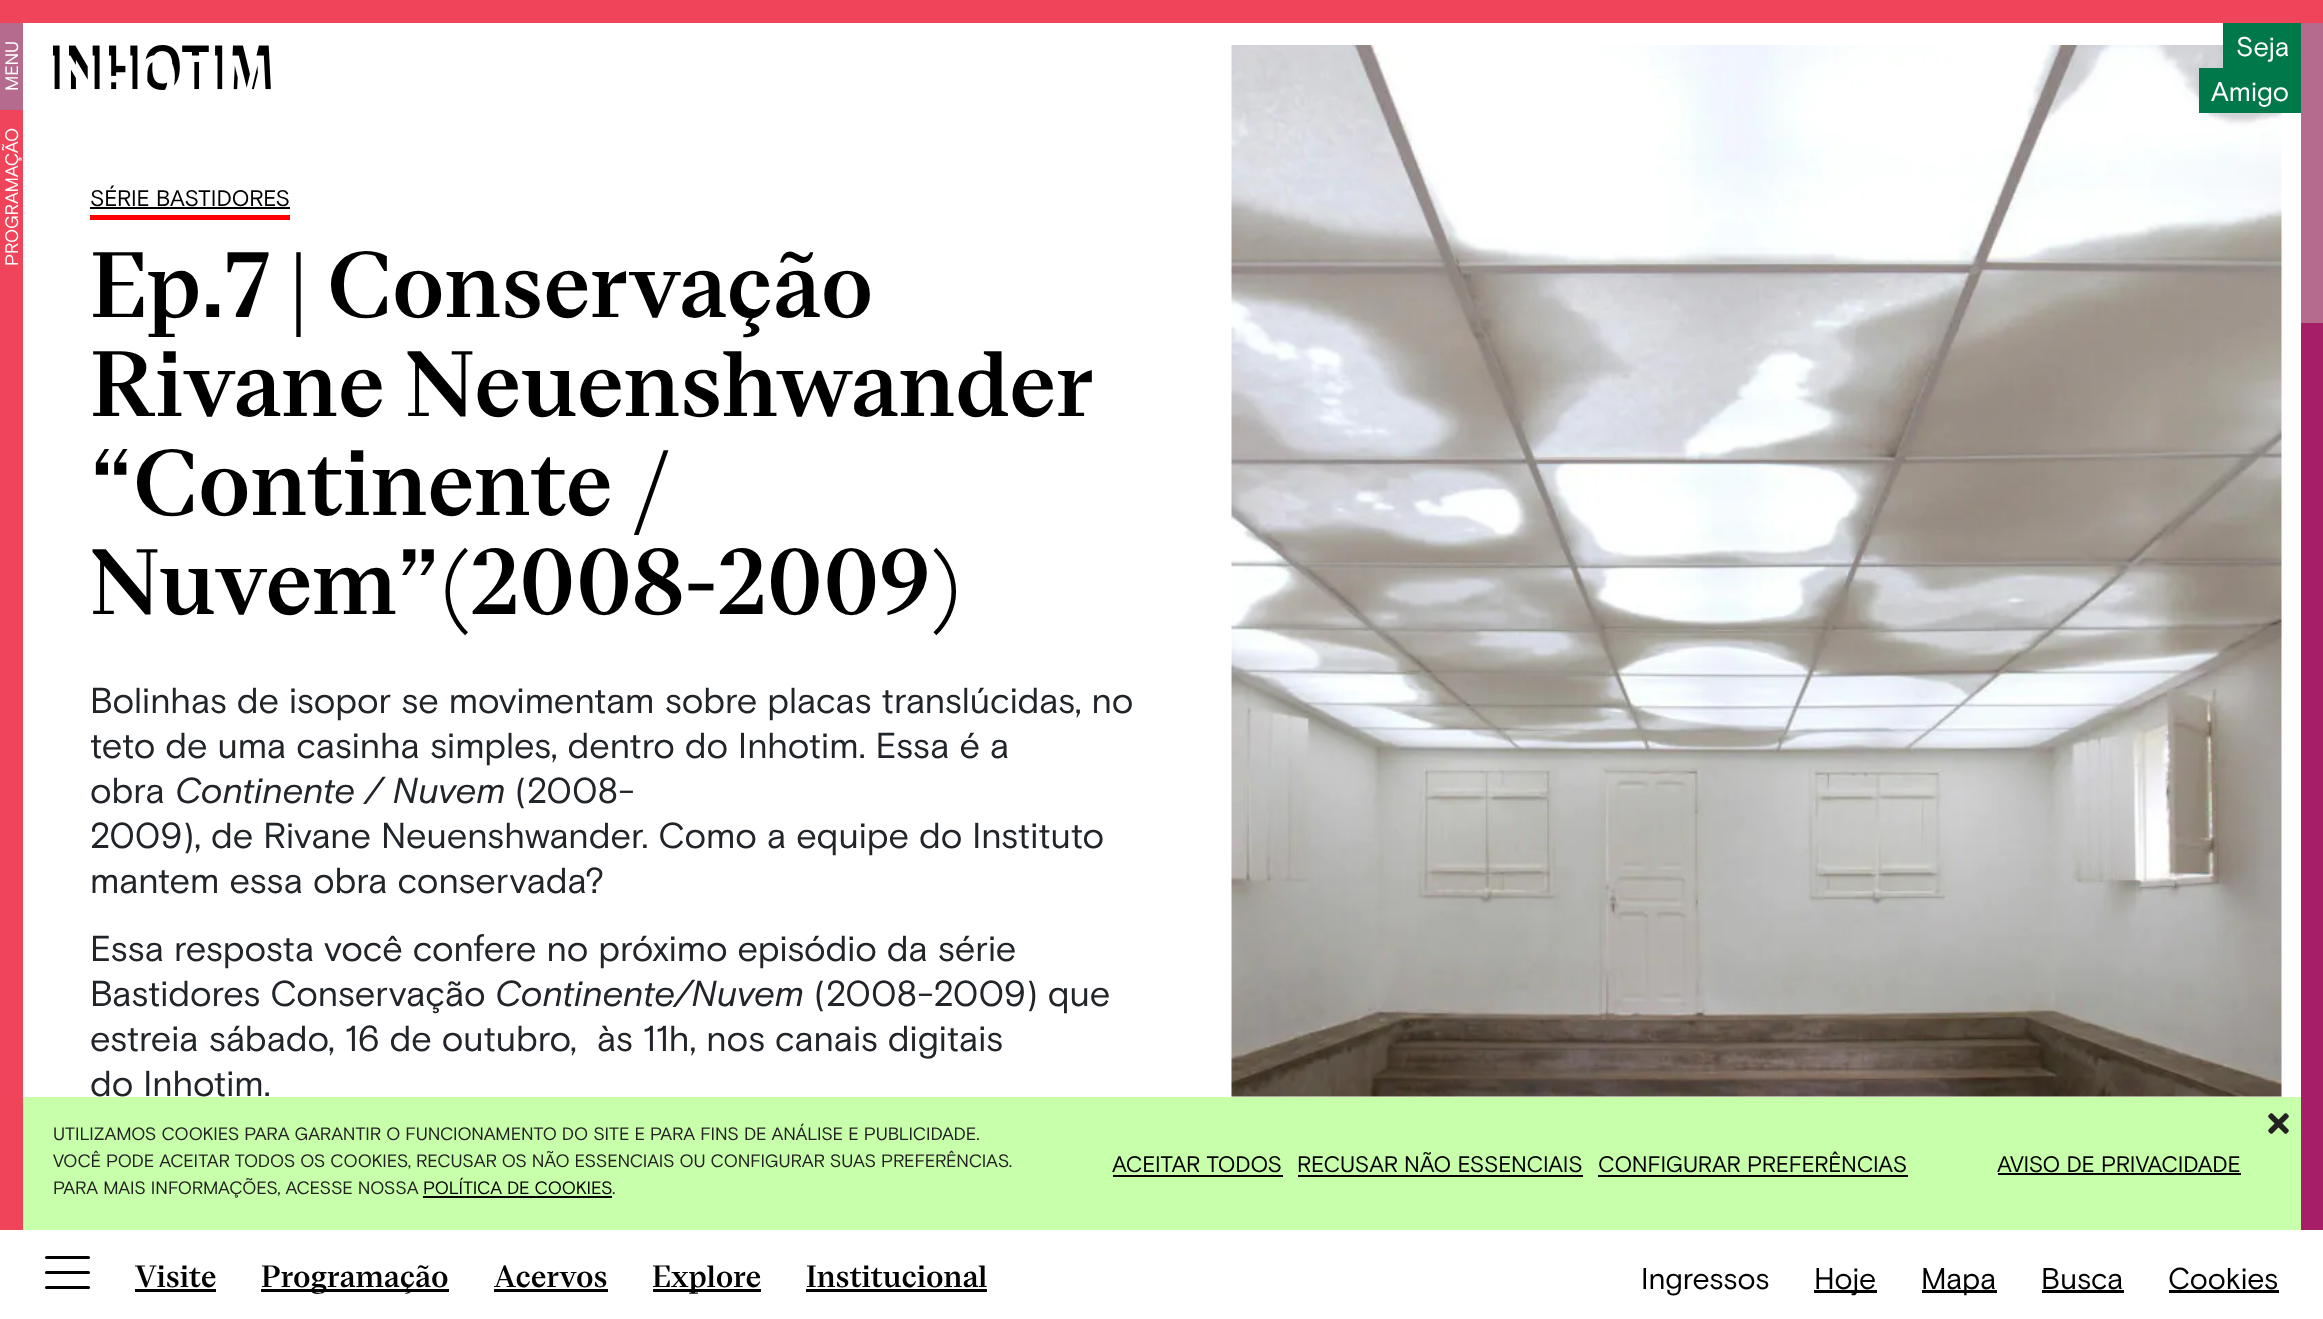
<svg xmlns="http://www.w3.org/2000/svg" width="2323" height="1319">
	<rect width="100%" height="100%" fill="#FFFFFF" />
	<rect x="0" y="0" width="2323" height="23" fill="#EF4459" />
	<image x="53" y="45" width="218" height="45" href="assets/img1.png" />
	<rect x="0" y="110" width="23" height="1120" fill="#EF4459" />
	<rect x="0" y="23" width="23" height="87" fill="#B46B8D" />
	<g font-family="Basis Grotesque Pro" font-size="18" fill="#FFFFFF">
		<text x="18" y="91" transform="rotate(-90 18 91)">MENU</text>
		<text x="18" y="266" transform="rotate(-90 18 266)">PROGRAMAÇÃO</text>
	</g>
	<image x="1231" y="45" width="1051" height="1052" href="assets/img2.png" />
	<rect x="2223" y="23" width="78" height="45" fill="#00784A" />
	<text x="2236" y="56" font-family="Basis Grotesque Pro" font-size="27" fill="#FFFFFF">Seja</text>
	<rect x="2199" y="68" width="102" height="45" fill="#00784A" />
	<text x="2211" y="101" font-family="Basis Grotesque Pro" font-size="27" fill="#FFFFFF">Amigo</text>
	<rect x="90" y="215" width="200" height="5" fill="#FF0000" />
	<text x="90" y="206" font-family="Basis Grotesque Pro" font-size="22.5" fill="#000000">SÉRIE BASTIDORES</text>
	<rect x="90" y="207" width="200" height="2" fill="#000000" />
	<g font-family="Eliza" font-size="90" font-weight="500" fill="#000000">
		<text x="90" y="317">Ep.7 | Conservação</text>
		<text x="90" y="416">Rivane Neuenshwander</text>
		<text x="90" y="515">“Continente /</text>
		<text x="90" y="614">Nuvem”(2008-2009)</text>
	</g>
	<g font-family="Basis Grotesque Pro" font-size="36" fill="#212529">
		<text x="90" y="713">Bolinhas de isopor se movimentam sobre placas translúcidas, no</text>
		<text x="90" y="758">teto de uma casinha simples, dentro do Inhotim. Essa é a</text>
		<text x="90" y="803">obra</text>
	</g>
	<text x="175" y="803" font-family="Basis Grotesque Pro" font-size="36" font-style="italic" fill="#212529">Continente / Nuvem</text>
	<g font-family="Basis Grotesque Pro" font-size="36" fill="#212529">
		<text x="515" y="803">(2008-</text>
		<text x="90" y="848">2009), de Rivane Neuenshwander. Como a equipe do Instituto</text>
		<text x="90" y="893">mantem essa obra conservada?</text>
		<text x="90" y="961">Essa resposta você confere no próximo episódio da série</text>
		<text x="90" y="1006">Bastidores Conservação</text>
	</g>
	<text x="495" y="1006" font-family="Basis Grotesque Pro" font-size="36" font-style="italic" fill="#212529">Continente/Nuvem</text>
	<g font-family="Basis Grotesque Pro" font-size="36" fill="#212529">
		<text x="814" y="1006">(2008-2009) que</text>
		<text x="90" y="1051" xml:space="preserve">estreia sábado, 16 de outubro,  às 11h, nos canais digitais</text>
		<text x="90" y="1096">do Inhotim.</text>
	</g>
	<rect x="23" y="1097" width="2278" height="133" fill="#C8FFAA" />
	<g font-family="Basis Grotesque Pro" font-size="18" fill="#222222">
		<text x="53" y="1140">UTILIZAMOS COOKIES PARA GARANTIR O FUNCIONAMENTO DO SITE E PARA FINS DE ANÁLISE E PUBLICIDADE.</text>
		<text x="53" y="1167">VOCÊ PODE ACEITAR TODOS OS COOKIES, RECUSAR OS NÃO ESSENCIAIS OU CONFIGURAR SUAS PREFERÊNCIAS.</text>
		<text x="53" y="1194">PARA MAIS INFORMAÇÕES, ACESSE NOSSA</text>
	</g>
	<text x="423" y="1194" font-family="Basis Grotesque Pro" font-size="18" fill="#000000">POLÍTICA DE COOKIES</text>
	<rect x="423" y="1196" width="189" height="2" fill="#000000" />
	<text x="612" y="1194" font-family="Basis Grotesque Pro" font-size="18" fill="#222222">.</text>
	<text x="1112" y="1172" font-family="Basis Grotesque Pro" font-size="22.5" fill="#000000">ACEITAR TODOS</text>
	<rect x="1113" y="1175" width="170" height="2" fill="#000000" />
	<text x="1297" y="1172" font-family="Basis Grotesque Pro" font-size="22.5" fill="#000000">RECUSAR NÃO ESSENCIAIS</text>
	<rect x="1298" y="1175" width="285" height="2" fill="#000000" />
	<text x="1598" y="1172" font-family="Basis Grotesque Pro" font-size="22.5" fill="#000000">CONFIGURAR PREFERÊNCIAS</text>
	<rect x="1598" y="1175" width="310" height="2" fill="#000000" />
	<text x="1997" y="1172" font-family="Basis Grotesque Pro" font-size="22.5" fill="#000000">AVISO DE PRIVACIDADE</text>
	<rect x="1998" y="1173" width="243" height="2" fill="#000000" />
	<image x="2268" y="1113" width="21" height="21" href="assets/img3.png" />
	<rect x="2301" y="323" width="22" height="907" fill="#A51E66" />
	<rect x="2301" y="23" width="22" height="300" fill="#B46B8D" />
	<rect x="45" y="1271" width="45" height="3" rx="1.5" fill="#000000" />
	<rect x="45" y="1256" width="45" height="3" rx="1.5" fill="#000000" />
	<rect x="45" y="1286" width="45" height="3" rx="1.5" fill="#000000" />
	<text x="135" y="1287" font-family="Eliza" font-size="30" font-weight="500" fill="#000000">Visite</text>
	<rect x="135" y="1289" width="81" height="3" fill="#000000" />
	<rect x="261" y="1289" width="188" height="3" fill="#000000" />
	<g font-family="Eliza" font-size="30" font-weight="500" fill="#000000">
		<text x="261" y="1287">Programação</text>
		<text x="494" y="1287">Acervos</text>
	</g>
	<rect x="494" y="1289" width="114" height="3" fill="#000000" />
	<rect x="653" y="1289" width="108" height="3" fill="#000000" />
	<g font-family="Eliza" font-size="30" font-weight="500" fill="#000000">
		<text x="652" y="1287">Explore</text>
		<text x="806" y="1287">Institucional</text>
	</g>
	<rect x="806" y="1289" width="181" height="3" fill="#000000" />
	<text x="1641" y="1289" font-family="Basis Grotesque Pro" font-size="30" fill="#000000">Ingressos</text>
	<rect x="1814" y="1290" width="63" height="3" fill="#000000" />
	<text x="1814" y="1289" font-family="Basis Grotesque Pro" font-size="30" fill="#000000">Hoje</text>
	<rect x="1922" y="1290" width="75" height="3" fill="#000000" />
	<g font-family="Basis Grotesque Pro" font-size="30" fill="#000000">
		<text x="1921" y="1289">Mapa</text>
		<text x="2041" y="1289">Busca</text>
	</g>
	<rect x="2042" y="1290" width="82" height="3" fill="#000000" />
	<text x="2168" y="1289" font-family="Basis Grotesque Pro" font-size="30" fill="#000000">Cookies</text>
	<rect x="2169" y="1290" width="110" height="3" fill="#000000" />
</svg>
